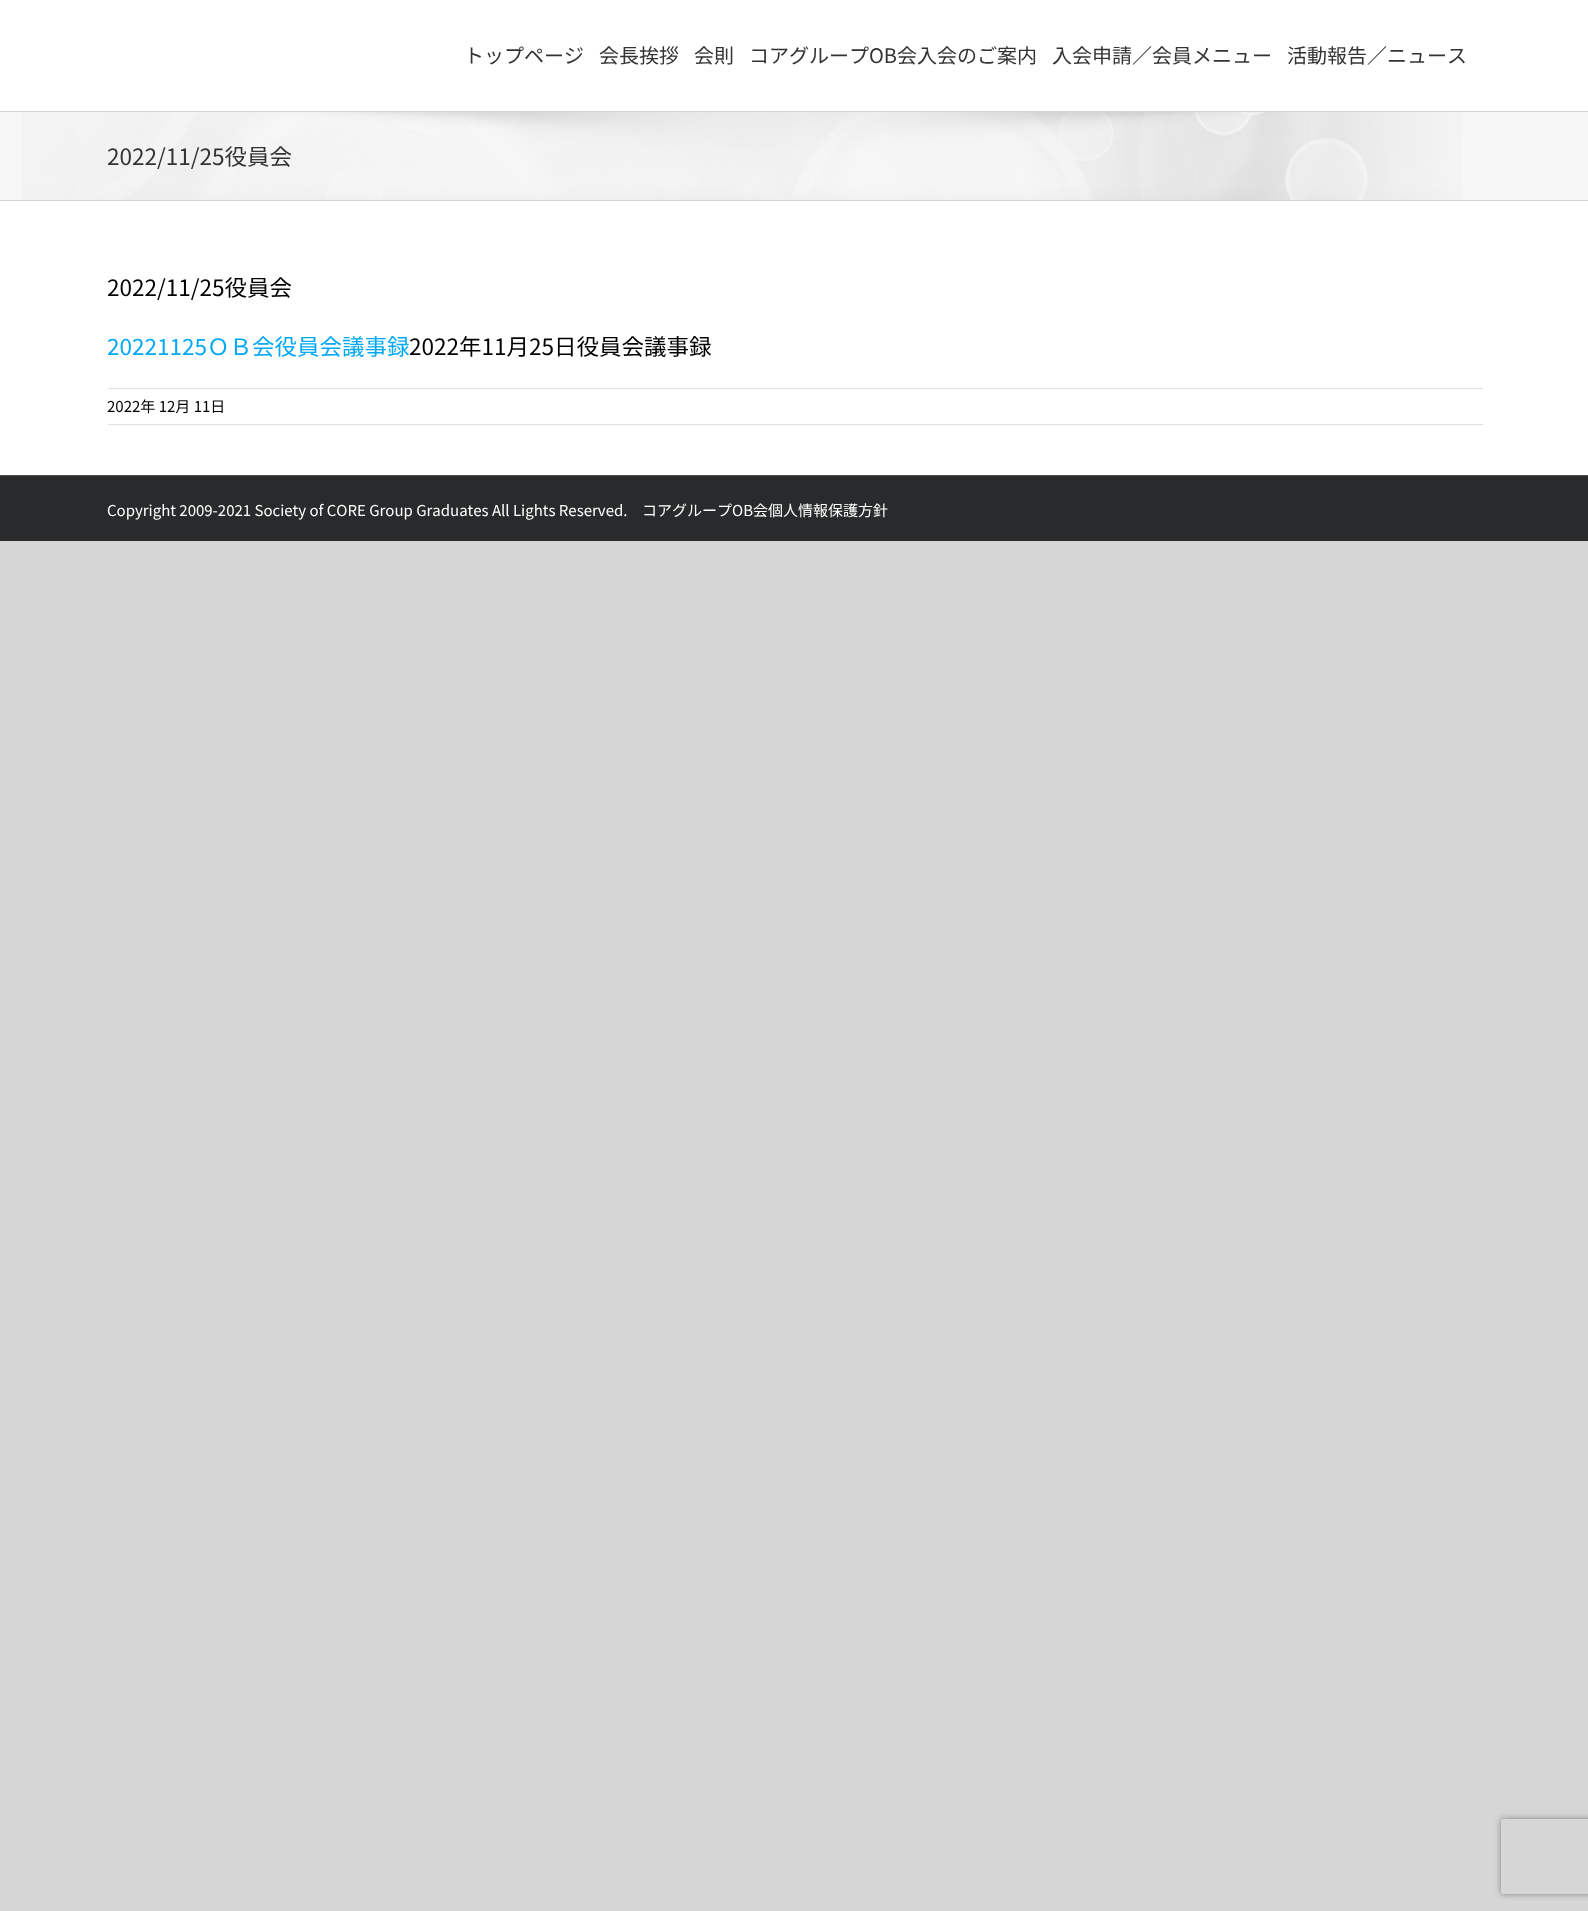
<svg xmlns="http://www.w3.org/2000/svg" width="1588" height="1911">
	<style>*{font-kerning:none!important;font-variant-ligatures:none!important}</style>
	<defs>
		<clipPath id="clip1"><path d="M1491 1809H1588V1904H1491ZM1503.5 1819H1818.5C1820 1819 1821 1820 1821 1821.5V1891.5C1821 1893 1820 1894 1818.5 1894H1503.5C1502 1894 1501 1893 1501 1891.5V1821.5C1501 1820 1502 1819 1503.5 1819Z" clip-rule="evenodd" /></clipPath>
	</defs>
	<rect width="100%" height="100%" fill="#D7D6D6" />
	<rect x="0" y="0" width="1588" height="111" fill="#FFFFFF" />
	<g font-family="Noto Sans JP" font-size="20" fill="#333333">
		<text x="464" y="63">トップページ</text>
		<text x="599" y="63">会長挨拶</text>
		<text x="694" y="63">会則</text>
		<text x="749" y="63">コアグループOB会入会のご案内</text>
		<text x="1052" y="63">入会申請／会員メニュー</text>
		<text x="1287" y="63">活動報告／ニュース</text>
	</g>
	<rect x="0" y="112" width="1588" height="88" fill="#F6F6F6" />
	<image x="22" y="112" width="1440" height="88" href="assets/img1.png" />
	<rect x="0" y="111" width="1588" height="1" fill="#D2D3D4" />
	<rect x="0" y="200" width="1588" height="1" fill="#D2D3D4" />
	<text x="107" y="165" font-family="Noto Sans JP" font-size="22.5" fill="#333333">2022/11/25役員会</text>
	<rect x="0" y="201" width="1588" height="274" fill="#FFFFFF" />
	<text x="107" y="296" font-family="Noto Sans JP" font-size="22.5" fill="#000000">2022/11/25役員会</text>
	<text x="107" y="355" font-family="Noto Sans JP" font-size="22.5" fill="#03A9F4">20221125ＯＢ会役員会議事録</text>
	<text x="409" y="355" font-family="Noto Sans JP" font-size="22.5" fill="#000000">2022年11月25日役員会議事録</text>
	<rect x="108" y="388" width="1375" height="1" fill="#E0DEDE" />
	<rect x="108" y="424" width="1375" height="1" fill="#E0DEDE" />
	<text x="107" y="412" font-family="Noto Sans JP" font-size="15" fill="#000000">2022年 12月 11日</text>
	<rect x="0" y="476" width="1588" height="65" fill="#282A2B" />
	<rect x="0" y="475" width="1588" height="1" fill="#4B4C4D" />
	<g font-family="Noto Sans JP" font-size="15" fill="#FFFFFF">
		<text x="107" y="516">Copyright 2009-2021 Society of CORE Group Graduates All Lights Reserved.</text>
		<text x="642" y="516">コアグループOB会個人情報保護方針</text>
	</g>
	<g clip-path="url(#clip1)">
		<rect x="1501" y="1819" width="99" height="75" rx="2.5" fill="#808080" filter="blur(3px)" />
	</g>
</svg>
